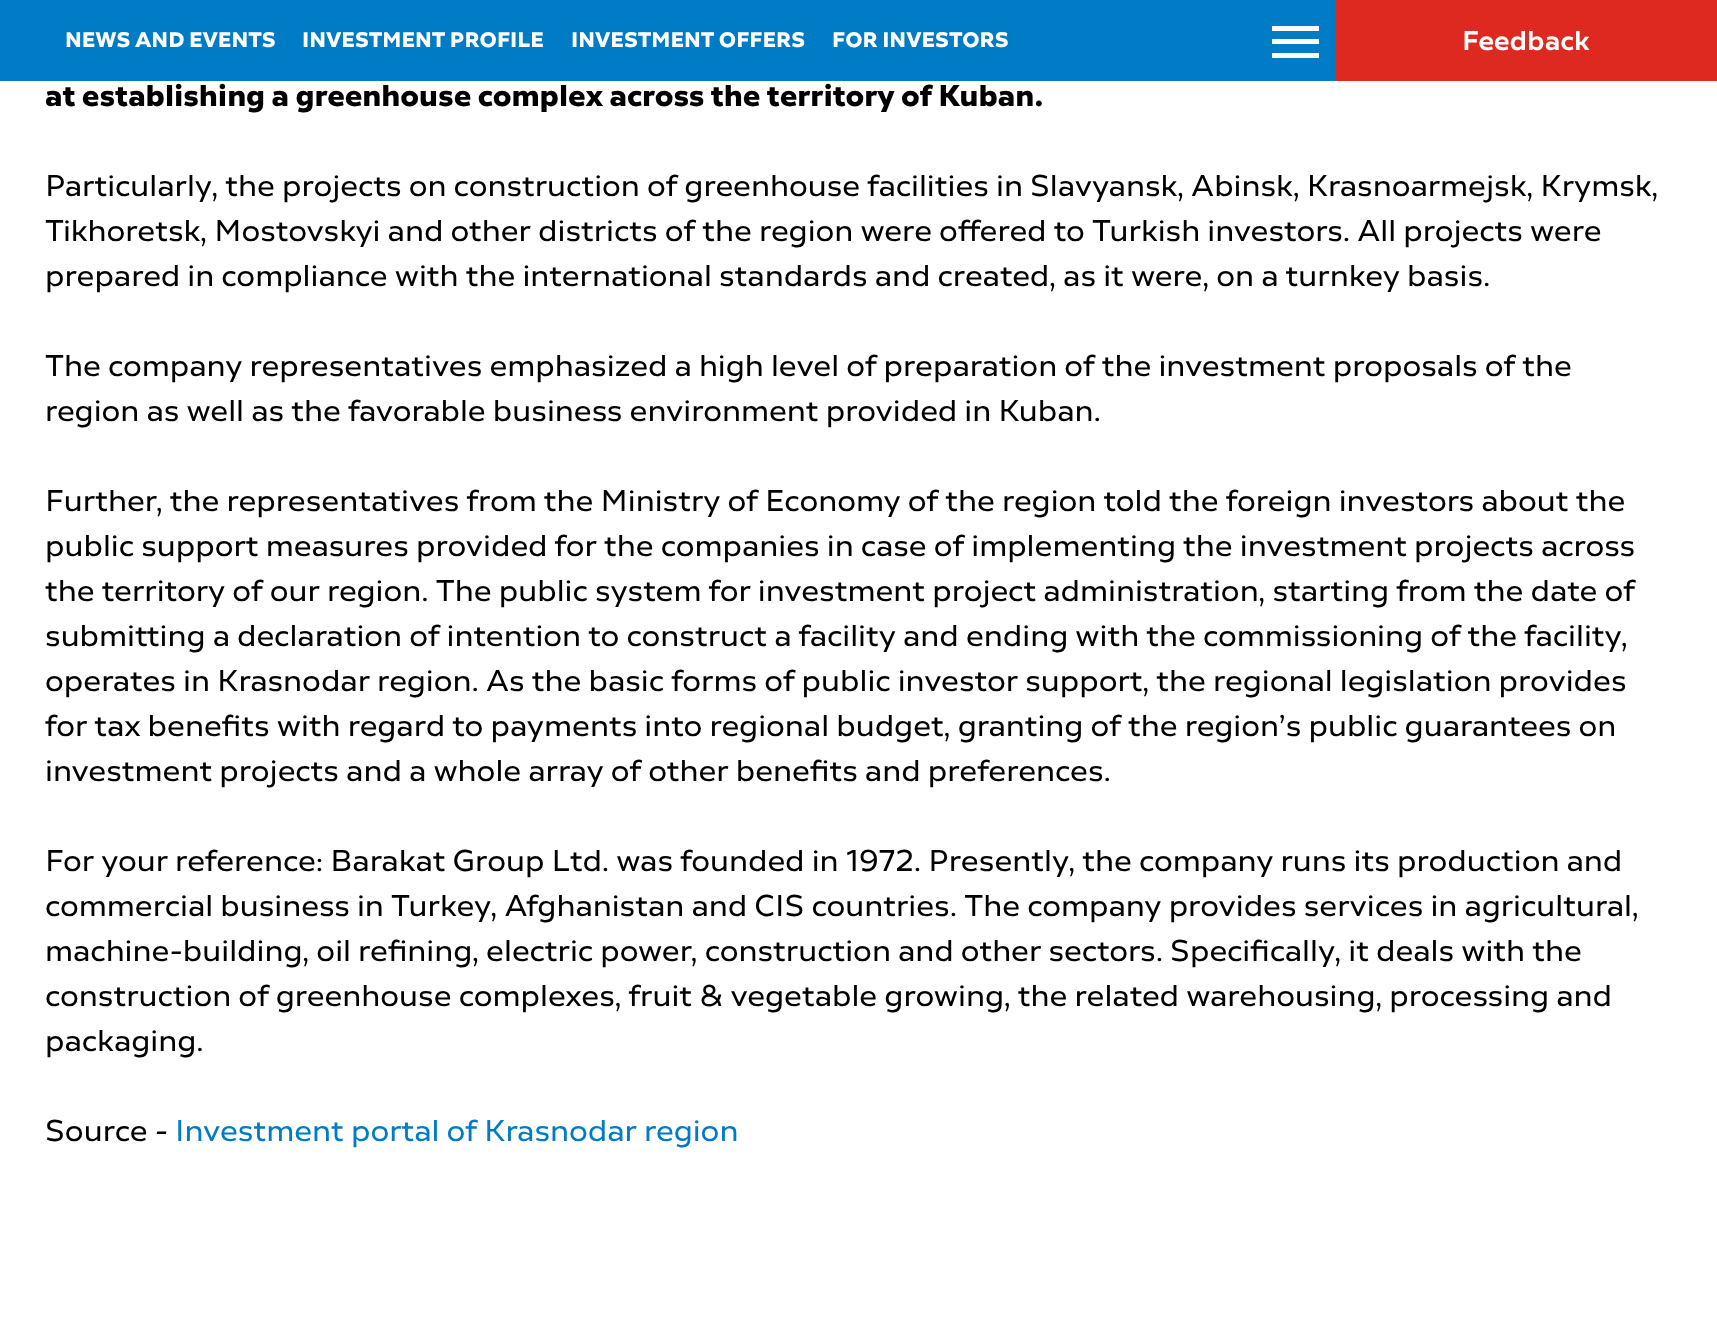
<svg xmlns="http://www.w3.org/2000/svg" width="1717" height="1334">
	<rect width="100%" height="100%" fill="#FFFFFF" />
	<rect x="0" y="0" width="1335" height="81" fill="#007BC5" />
	<g font-family="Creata" font-size="21" font-weight="700" fill="#FFFFFF">
		<text x="65" y="47">NEWS AND EVENTS</text>
		<text x="302" y="47">INVESTMENT PROFILE</text>
		<text x="571" y="47">INVESTMENT OFFERS</text>
		<text x="832" y="47">FOR INVESTORS</text>
	</g>
	<rect x="1272" y="39" width="47" height="5" fill="#FFFFFF" />
	<rect x="1272" y="26" width="47" height="5" fill="#FFFFFF" />
	<rect x="1272" y="53" width="47" height="5" fill="#FFFFFF" />
	<rect x="1335" y="0" width="382" height="81" fill="#DE2921" />
	<text x="1462" y="50" font-family="Creata" font-size="27" font-weight="500" fill="#FFFFFF">Feedback</text>
	<text x="45" y="106" font-family="Creata" font-size="30" font-weight="700" fill="#000000">at establishing a greenhouse complex across the territory of Kuban.</text>
	<g font-family="Creata" font-size="30" fill="#000000">
		<text x="45" y="196">Particularly, the projects on construction of greenhouse facilities in Slavyansk, Abinsk, Krasnoarmejsk, Krymsk,</text>
		<text x="45" y="241">Tikhoretsk, Mostovskyi and other districts of the region were offered to Turkish investors. All projects were</text>
		<text x="45" y="286">prepared in compliance with the international standards and created, as it were, on a turnkey basis.</text>
		<text x="45" y="376">The company representatives emphasized a high level of preparation of the investment proposals of the</text>
		<text x="45" y="421">region as well as the favorable business environment provided in Kuban.</text>
		<text x="45" y="511">Further, the representatives from the Ministry of Economy of the region told the foreign investors about the</text>
		<text x="45" y="556">public support measures provided for the companies in case of implementing the investment projects across</text>
		<text x="45" y="601">the territory of our region. The public system for investment project administration, starting from the date of</text>
		<text x="45" y="646">submitting a declaration of intention to construct a facility and ending with the commissioning of the facility,</text>
		<text x="45" y="691">operates in Krasnodar region. As the basic forms of public investor support, the regional legislation provides</text>
		<text x="45" y="736">for tax benefits with regard to payments into regional budget, granting of the region’s public guarantees on</text>
		<text x="45" y="781">investment projects and a whole array of other benefits and preferences.</text>
		<text x="45" y="871">For your reference: Barakat Group Ltd. was founded in 1972. Presently, the company runs its production and</text>
		<text x="45" y="916">commercial business in Turkey, Afghanistan and CIS countries. The company provides services in agricultural,</text>
		<text x="45" y="961">machine-building, oil refining, electric power, construction and other sectors. Specifically, it deals with the</text>
		<text x="45" y="1006">construction of greenhouse complexes, fruit &amp; vegetable growing, the related warehousing, processing and</text>
		<text x="45" y="1051">packaging.</text>
		<text x="45" y="1141">Source -</text>
	</g>
	<text x="175" y="1141" font-family="Creata" font-size="30" fill="#007BC5">Investment portal of Krasnodar region</text>
</svg>
